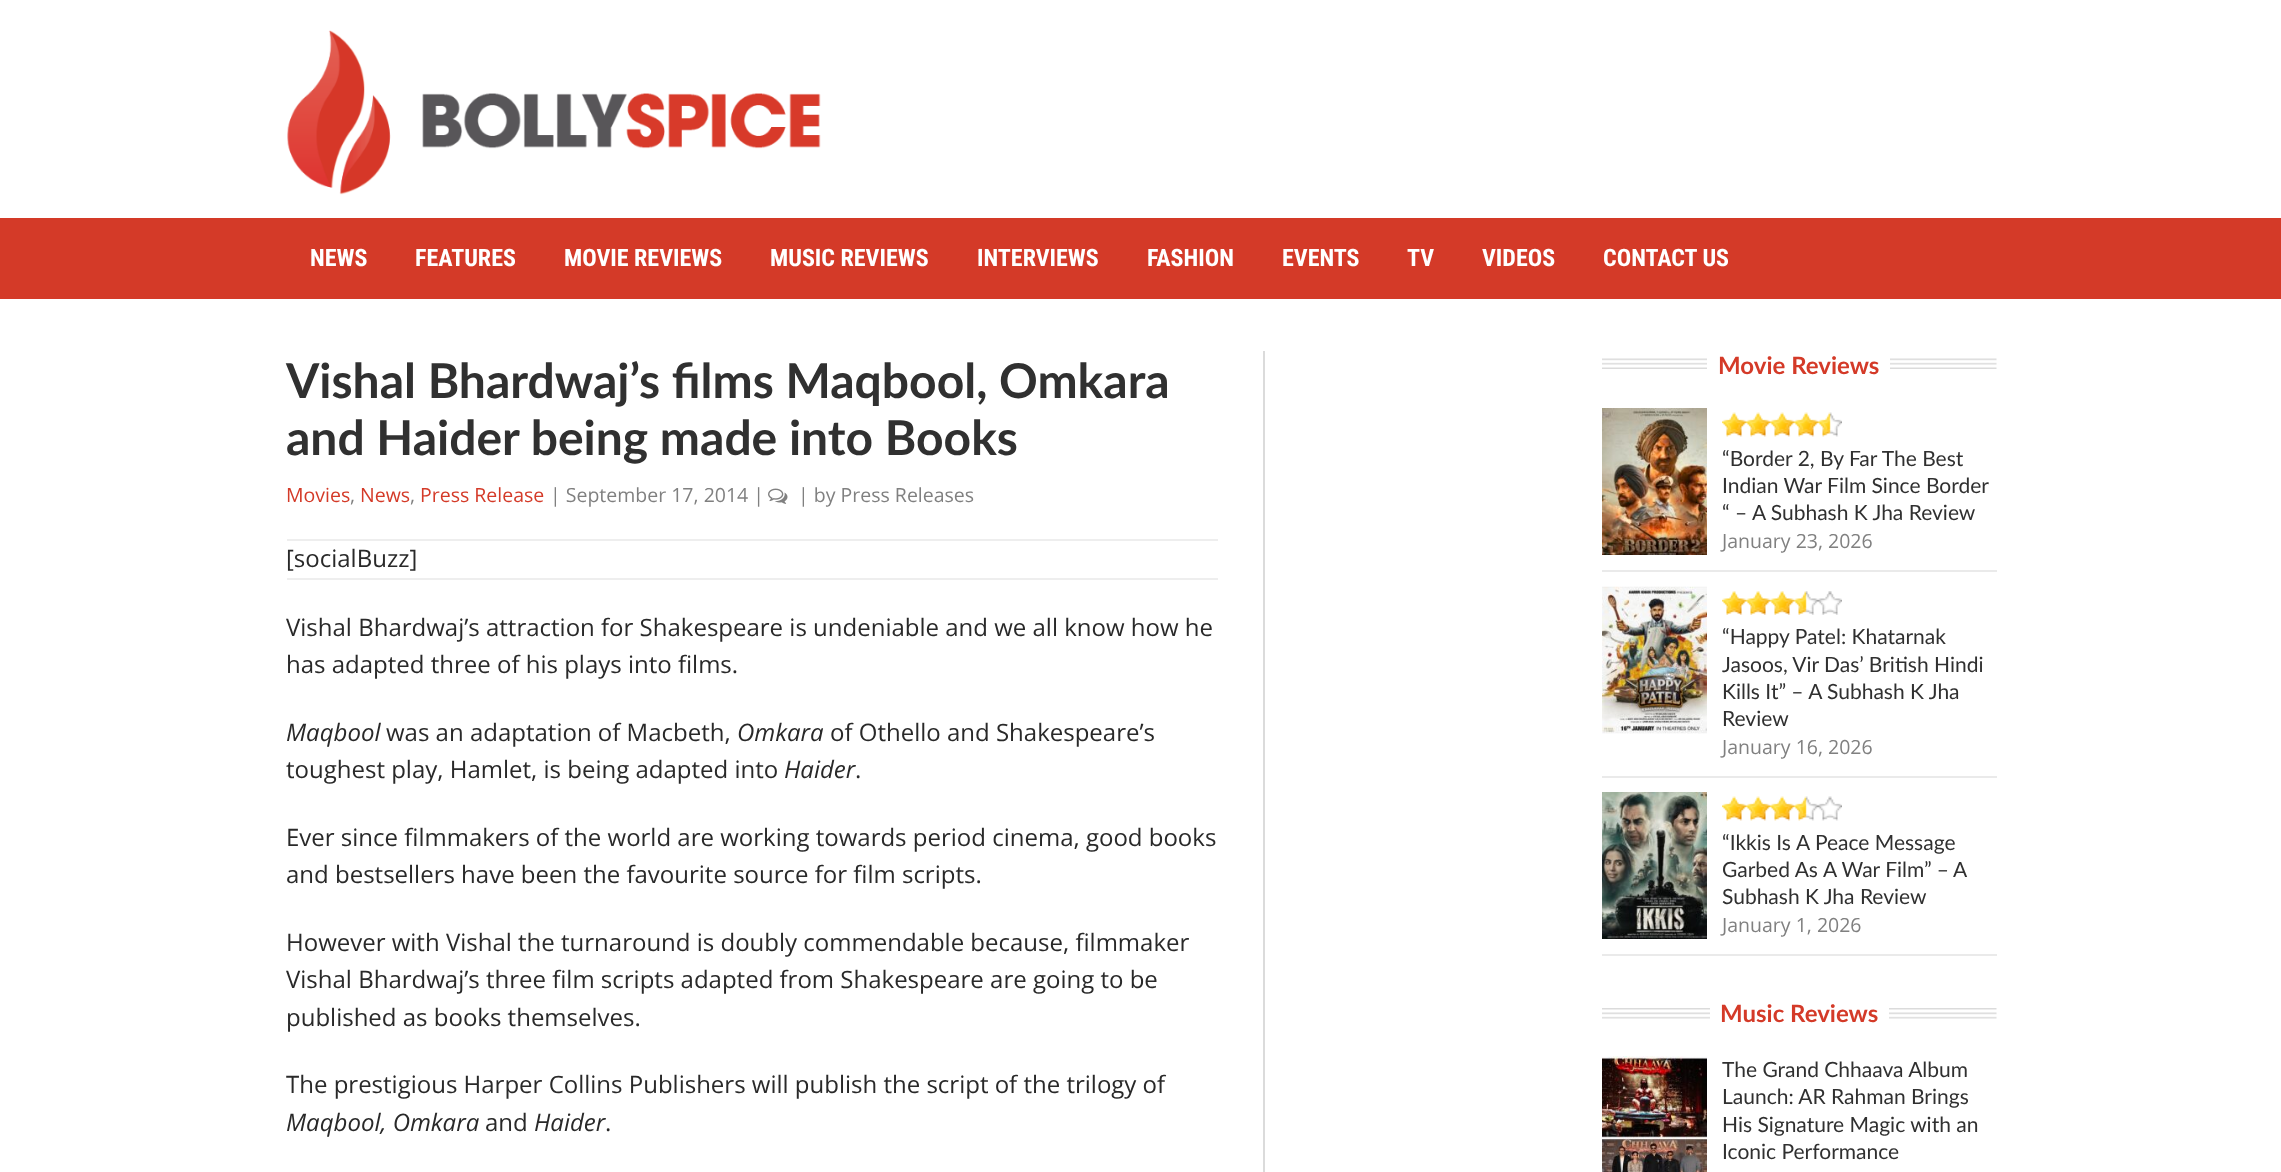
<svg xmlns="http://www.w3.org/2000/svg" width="2281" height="1172">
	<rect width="100%" height="100%" fill="#FFFFFF" />
	<image x="287" y="30" width="534" height="165" href="assets/img1.png" />
	<rect x="0" y="218" width="2281" height="81" fill="#D43A28" />
	<g font-family="Roboto Condensed" font-size="24" font-weight="700" fill="#FFFFFF">
		<text x="310" y="266">NEWS</text>
		<text x="415" y="266">FEATURES</text>
		<text x="564" y="266">MOVIE REVIEWS</text>
		<text x="770" y="266">MUSIC REVIEWS</text>
		<text x="977" y="266">INTERVIEWS</text>
		<text x="1147" y="266">FASHION</text>
		<text x="1282" y="266">EVENTS</text>
		<text x="1407" y="266">TV</text>
		<text x="1482" y="266">VIDEOS</text>
		<text x="1603" y="266">CONTACT US</text>
	</g>
	<rect x="1263" y="351" width="2" height="821" fill="#DBDBDB" />
	<g font-family="Lato" font-size="48" font-weight="700" fill="#303030">
		<text x="286" y="398">Vishal Bhardwaj’s films Maqbool, Omkara</text>
		<text x="286" y="455">and Haider being made into Books</text>
	</g>
	<text x="286" y="502" font-family="Open Sans" font-size="19.5" fill="#D43A28">Movies</text>
	<text x="350" y="502" font-family="Open Sans" font-size="19.5" fill="#808080">,</text>
	<text x="360" y="502" font-family="Open Sans" font-size="19.5" fill="#D43A28">News</text>
	<text x="410" y="502" font-family="Open Sans" font-size="19.5" fill="#808080">,</text>
	<text x="420" y="502" font-family="Open Sans" font-size="19.5" fill="#D43A28">Press Release</text>
	<text x="550" y="502" font-family="Open Sans" font-size="19.5" fill="#808080">| September 17, 2014 |</text>
	<image x="768" y="488" width="20" height="16" href="assets/img2.png" />
	<text x="798" y="502" font-family="Open Sans" font-size="19.5" fill="#808080">| by Press Releases</text>
	<rect x="287" y="539" width="931" height="2" fill="#EEEEEE" />
	<rect x="287" y="578" width="931" height="2" fill="#EEEEEE" />
	<g font-family="Open Sans" font-size="24" fill="#292929">
		<text x="286" y="567">[socialBuzz]</text>
		<text x="286" y="636">Vishal Bhardwaj’s attraction for Shakespeare is undeniable and we all know how he</text>
		<text x="286" y="673">has adapted three of his plays into films.</text>
	</g>
	<text x="286" y="741" font-family="Open Sans" font-size="24" font-style="italic" fill="#292929">Maqbool</text>
	<text x="386" y="741" font-family="Open Sans" font-size="24" fill="#292929">was an adaptation of Macbeth,</text>
	<text x="737" y="741" font-family="Open Sans" font-size="24" font-style="italic" fill="#292929">Omkara</text>
	<g font-family="Open Sans" font-size="24" fill="#292929">
		<text x="830" y="741">of Othello and Shakespeare’s</text>
		<text x="286" y="778">toughest play, Hamlet, is being adapted into</text>
	</g>
	<text x="784" y="778" font-family="Open Sans" font-size="24" font-style="italic" fill="#292929">Haider</text>
	<g font-family="Open Sans" font-size="24" fill="#292929">
		<text x="855" y="778">.</text>
		<text x="286" y="846">Ever since filmmakers of the world are working towards period cinema, good books</text>
		<text x="286" y="883">and bestsellers have been the favourite source for film scripts.</text>
		<text x="286" y="951">However with Vishal the turnaround is doubly commendable because, filmmaker</text>
		<text x="286" y="988">Vishal Bhardwaj’s three film scripts adapted from Shakespeare are going to be</text>
		<text x="286" y="1026">published as books themselves.</text>
		<text x="286" y="1093">The prestigious Harper Collins Publishers will publish the script of the trilogy of</text>
	</g>
	<text x="286" y="1131" font-family="Open Sans" font-size="24" font-style="italic" fill="#292929">Maqbool, Omkara</text>
	<text x="485" y="1131" font-family="Open Sans" font-size="24" fill="#292929">and</text>
	<text x="534" y="1131" font-family="Open Sans" font-size="24" font-style="italic" fill="#292929">Haider</text>
	<text x="605" y="1131" font-family="Open Sans" font-size="24" fill="#292929">.</text>
	<image x="1602" y="358" width="395" height="11" href="assets/img3.png" />
	<rect x="1707" y="358" width="183" height="11" fill="#FFFFFF" />
	<text x="1718" y="374" font-family="Lato" font-size="24" font-weight="700" fill="#D43A28">Movie Reviews</text>
	<rect x="1602" y="570" width="395" height="2" fill="#EAEAEA" />
	<image x="1602" y="408" width="105" height="147" href="assets/img4.png" />
	<image x="1722" y="412" width="120" height="25" href="assets/img5.png" />
	<g font-family="Lato" font-size="21" fill="#303030">
		<text x="1722" y="466">“Border 2, By Far The Best</text>
		<text x="1722" y="493">Indian War Film Since Border</text>
		<text x="1722" y="520">“ – A Subhash K Jha Review</text>
	</g>
	<text x="1722" y="548" font-family="Open Sans" font-size="19.5" fill="#808080">January 23, 2026</text>
	<rect x="1602" y="776" width="395" height="2" fill="#EAEAEA" />
	<image x="1602" y="586" width="105" height="148" href="assets/img6.png" />
	<image x="1722" y="591" width="120" height="24" href="assets/img7.png" />
	<g font-family="Lato" font-size="21" fill="#303030">
		<text x="1722" y="644">“Happy Patel: Khatarnak</text>
		<text x="1722" y="672">Jasoos, Vir Das’ British Hindi</text>
		<text x="1722" y="699">Kills It” – A Subhash K Jha</text>
		<text x="1722" y="726">Review</text>
	</g>
	<text x="1722" y="754" font-family="Open Sans" font-size="19.5" fill="#808080">January 16, 2026</text>
	<rect x="1602" y="954" width="395" height="2" fill="#EAEAEA" />
	<image x="1602" y="792" width="105" height="147" href="assets/img8.png" />
	<image x="1722" y="796" width="120" height="25" href="assets/img9.png" />
	<g font-family="Lato" font-size="21" fill="#303030">
		<text x="1722" y="850">“Ikkis Is</text>
		<text x="1796" y="850">A Peace Message</text>
		<text x="1722" y="877">Garbed As</text>
		<text x="1823" y="877">A War Film” –</text>
		<text x="1953" y="877">A</text>
		<text x="1722" y="904">Subhash K Jha Review</text>
	</g>
	<text x="1722" y="932" font-family="Open Sans" font-size="19.5" fill="#808080">January 1, 2026</text>
	<image x="1602" y="1008" width="395" height="11" href="assets/img10.png" />
	<rect x="1710" y="1008" width="179" height="11" fill="#FFFFFF" />
	<text x="1720" y="1022" font-family="Lato" font-size="24" font-weight="700" fill="#D43A28">Music Reviews</text>
	<image x="1602" y="1056" width="105" height="116" href="assets/img11.png" />
	<g font-family="Lato" font-size="21" fill="#303030">
		<text x="1722" y="1077">The Grand Chhaava Album</text>
		<text x="1722" y="1104">Launch: AR Rahman Brings</text>
		<text x="1722" y="1132">His Signature Magic with an</text>
		<text x="1722" y="1159">Iconic Performance</text>
	</g>
</svg>
